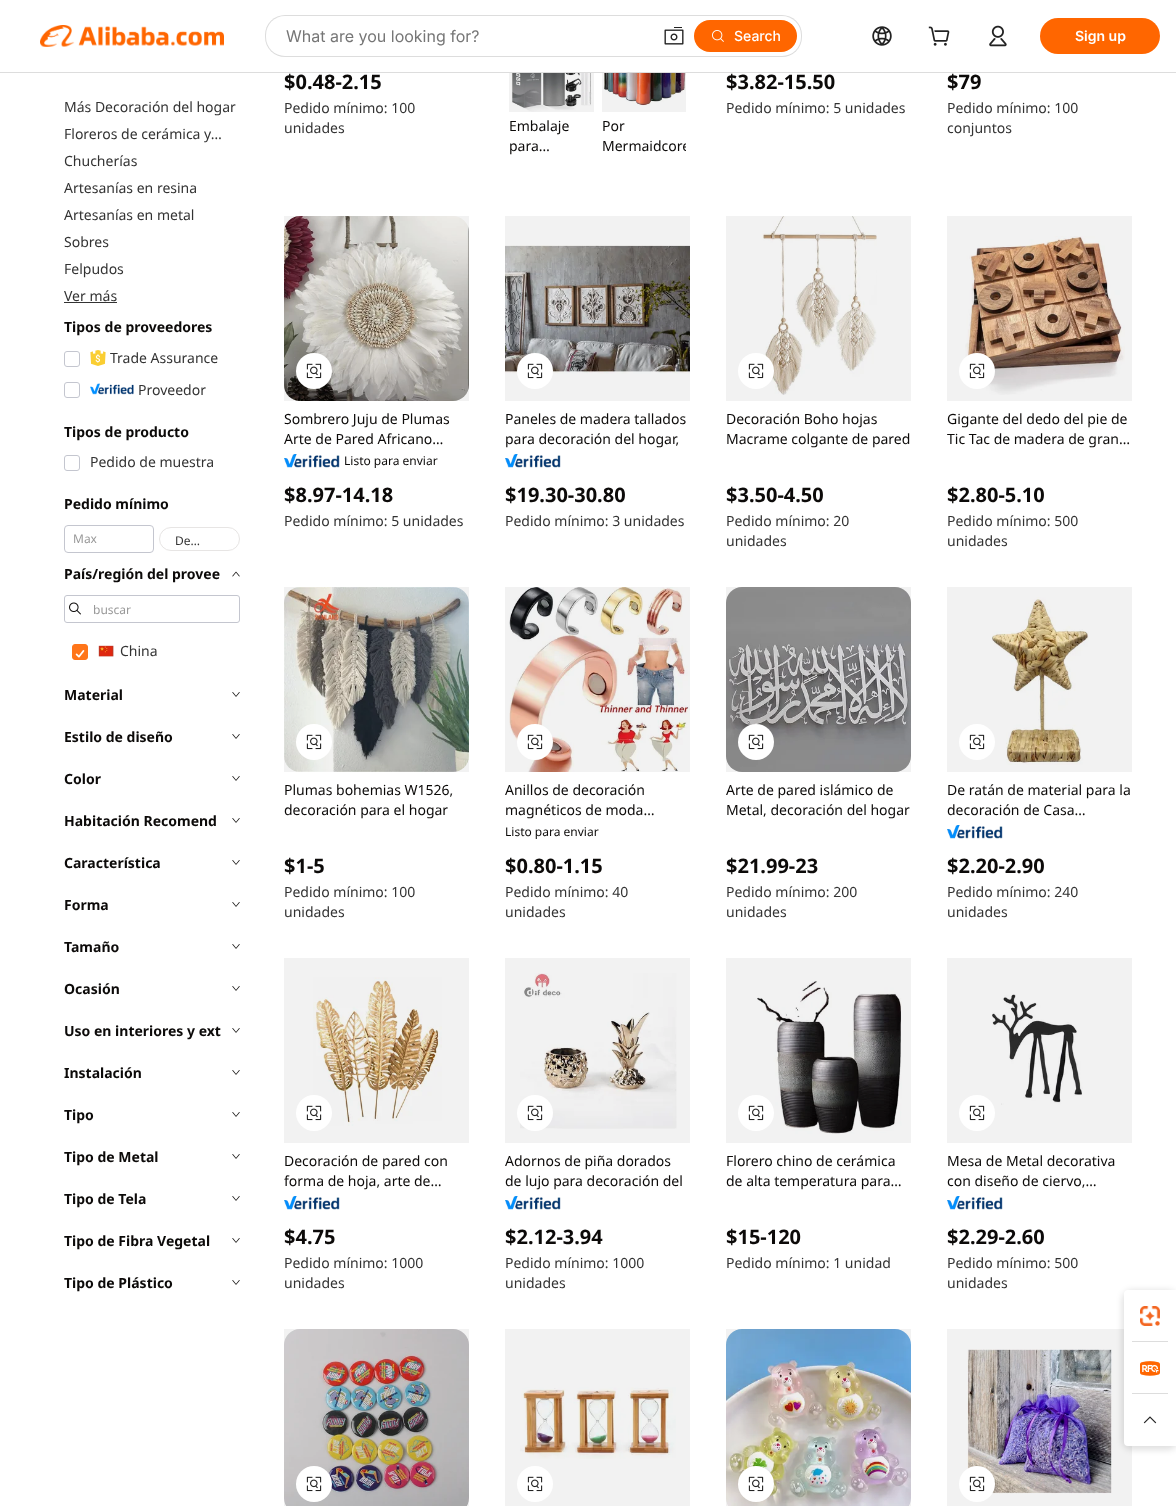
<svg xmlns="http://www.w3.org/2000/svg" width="1176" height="1506">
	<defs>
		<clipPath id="clip1"><rect x="602" y="116" width="84" height="40" /></clipPath>
	</defs>
	<rect width="100%" height="100%" fill="#FFFFFF" />
	<rect x="0" y="72" width="1176" height="1" fill="#DDDDDD" />
	<image x="40" y="25" width="184" height="22" href="assets/img1.png" />
	<rect x="265" y="15" width="537" height="42" rx="20" fill="#DDDDDD" />
	<rect x="266" y="16" width="535" height="40" rx="19" fill="#FFFFFF" />
	<text x="286" y="42" font-family="Inter" font-size="16" fill="#767676">What are you looking for?</text>
	<image x="664" y="27" width="20" height="18" href="assets/img2.png" />
	<rect x="694" y="20" width="103" height="32" rx="16" fill="#FF6600" />
	<image x="712" y="30" width="12" height="12" href="assets/img3.png" />
	<text x="734" y="41" font-family="Inter" font-size="14" font-weight="500" fill="#FFFFFF">Search</text>
	<image x="872" y="26" width="20" height="20" href="assets/img4.png" />
	<image x="928" y="26" width="22" height="20" href="assets/img5.png" />
	<image x="989" y="25" width="18" height="22" href="assets/img6.png" />
	<rect x="1040" y="18" width="120" height="36" rx="18" fill="#FF6600" />
	<text x="1075" y="41" font-family="Inter" font-size="14" font-weight="600" fill="#FFFFFF">Sign up</text>
	<g font-family="Noto Sans" font-size="14" fill="#333333">
		<text x="64" y="112">Más Decoración del hogar</text>
		<text x="64" y="139">Floreros de cerámica y…</text>
		<text x="64" y="166">Chucherías</text>
		<text x="64" y="193">Artesanías en resina</text>
		<text x="64" y="220">Artesanías en metal</text>
		<text x="64" y="247">Sobres</text>
		<text x="64" y="274">Felpudos</text>
		<text x="64" y="301">Ver más</text>
	</g>
	<rect x="64" y="302" width="53" height="1" fill="#333333" />
	<text x="64" y="332" font-family="Noto Sans" font-size="14" font-weight="700" fill="#0C0A09">Tipos de proveedores</text>
	<rect x="64.5" y="351.5" width="15" height="15" rx="2.5" fill="none" stroke="#C4C6CF" />
	<image x="90" y="350" width="16" height="16" href="assets/img7.png" />
	<text x="110" y="363" font-family="Noto Sans" font-size="14" fill="#333333">Trade Assurance</text>
	<rect x="64.5" y="382.5" width="15" height="15" rx="2.5" fill="none" stroke="#C4C6CF" />
	<image x="90" y="383" width="44" height="12" href="assets/img8.png" />
	<text x="138" y="395" font-family="Noto Sans" font-size="14" fill="#333333">Proveedor</text>
	<text x="64" y="437" font-family="Noto Sans" font-size="14" font-weight="700" fill="#0C0A09">Tipos de producto</text>
	<rect x="64.5" y="455.5" width="15" height="15" rx="2.5" fill="none" stroke="#C4C6CF" />
	<text x="90" y="467" font-family="Noto Sans" font-size="14" fill="#333333">Pedido de muestra</text>
	<text x="64" y="509" font-family="Noto Sans" font-size="14" font-weight="700" fill="#0C0A09">Pedido mínimo</text>
	<rect x="64.5" y="525.5" width="89" height="27" rx="3.5" fill="none" stroke="#C4C6CF" />
	<text x="73" y="543" font-family="Noto Sans" font-size="12" fill="#999999">Max</text>
	<rect x="159.5" y="527.5" width="80" height="23" rx="11.5" fill="none" stroke="#E7E5E4" />
	<text x="175" y="545" font-family="Noto Sans" font-size="12" fill="#333333">De…</text>
	<text x="64" y="579" font-family="Noto Sans" font-size="14" font-weight="700" fill="#0C0A09">País/región del provee</text>
	<image x="232" y="571" width="8" height="6" href="assets/img9.png" />
	<rect x="64.5" y="595.5" width="175" height="27" rx="2.5" fill="none" stroke="#C4C6CF" />
	<image x="69" y="602" width="12" height="13" href="assets/img10.png" />
	<text x="93" y="614" font-family="Noto Sans" font-size="12" fill="#999999">buscar</text>
	<rect x="72.5" y="644.5" width="15" height="15" rx="2.5" fill="#FF7519" stroke="#FF7519" />
	<image x="75" y="650" width="10" height="8" href="assets/img11.png" />
	<image x="98" y="645" width="16" height="12" href="assets/img12.png" />
	<text x="120" y="656" font-family="Noto Sans" font-size="14" fill="#333333">China</text>
	<text x="64" y="700" font-family="Noto Sans" font-size="14" font-weight="700" fill="#0C0A09">Material</text>
	<image x="232" y="692" width="8" height="5" href="assets/img13.png" />
	<text x="64" y="742" font-family="Noto Sans" font-size="14" font-weight="700" fill="#0C0A09">Estilo de diseño</text>
	<image x="232" y="734" width="8" height="5" href="assets/img13.png" />
	<text x="64" y="784" font-family="Noto Sans" font-size="14" font-weight="700" fill="#0C0A09">Color</text>
	<image x="232" y="776" width="8" height="5" href="assets/img13.png" />
	<text x="64" y="826" font-family="Noto Sans" font-size="14" font-weight="700" fill="#0C0A09">Habitación Recomend</text>
	<image x="232" y="818" width="8" height="5" href="assets/img13.png" />
	<text x="64" y="868" font-family="Noto Sans" font-size="14" font-weight="700" fill="#0C0A09">Característica</text>
	<image x="232" y="860" width="8" height="5" href="assets/img13.png" />
	<text x="64" y="910" font-family="Noto Sans" font-size="14" font-weight="700" fill="#0C0A09">Forma</text>
	<image x="232" y="902" width="8" height="5" href="assets/img13.png" />
	<text x="64" y="952" font-family="Noto Sans" font-size="14" font-weight="700" fill="#0C0A09">Tamaño</text>
	<image x="232" y="944" width="8" height="5" href="assets/img13.png" />
	<text x="64" y="994" font-family="Noto Sans" font-size="14" font-weight="700" fill="#0C0A09">Ocasión</text>
	<image x="232" y="986" width="8" height="5" href="assets/img13.png" />
	<text x="64" y="1036" font-family="Noto Sans" font-size="14" font-weight="700" fill="#0C0A09">Uso en interiores y ext</text>
	<image x="232" y="1028" width="8" height="5" href="assets/img13.png" />
	<text x="64" y="1078" font-family="Noto Sans" font-size="14" font-weight="700" fill="#0C0A09">Instalación</text>
	<image x="232" y="1070" width="8" height="5" href="assets/img13.png" />
	<text x="64" y="1120" font-family="Noto Sans" font-size="14" font-weight="700" fill="#0C0A09">Tipo</text>
	<image x="232" y="1112" width="8" height="5" href="assets/img13.png" />
	<text x="64" y="1162" font-family="Noto Sans" font-size="14" font-weight="700" fill="#0C0A09">Tipo de Metal</text>
	<image x="232" y="1154" width="8" height="5" href="assets/img13.png" />
	<text x="64" y="1204" font-family="Noto Sans" font-size="14" font-weight="700" fill="#0C0A09">Tipo de Tela</text>
	<image x="232" y="1196" width="8" height="5" href="assets/img13.png" />
	<text x="64" y="1246" font-family="Noto Sans" font-size="14" font-weight="700" fill="#0C0A09">Tipo de Fibra Vegetal</text>
	<image x="232" y="1238" width="8" height="5" href="assets/img13.png" />
	<text x="64" y="1288" font-family="Noto Sans" font-size="14" font-weight="700" fill="#0C0A09">Tipo de Plástico</text>
	<image x="232" y="1280" width="8" height="5" href="assets/img13.png" />
	<text x="284" y="89" font-family="Noto Sans" font-size="20" font-weight="700" fill="#0C0A09">$0.48-2.15</text>
	<g font-family="Noto Sans" font-size="14" fill="#333333">
		<text x="284" y="113">Pedido mínimo: 100</text>
		<text x="284" y="133">unidades</text>
	</g>
	<image x="511" y="73" width="82" height="39" href="assets/img14.png" />
	<rect x="509" y="73" width="85" height="39" fill="#000000" fill-opacity="0.05" />
	<g font-family="Noto Sans" font-size="14" fill="#0C0A09">
		<text x="509" y="131">Embalaje</text>
		<text x="509" y="151">para…</text>
	</g>
	<image x="603" y="73" width="83" height="33" href="assets/img15.png" />
	<rect x="602" y="73" width="84" height="39" fill="#000000" fill-opacity="0.05" />
	<text x="602" y="131" font-family="Noto Sans" font-size="14" fill="#0C0A09">Por</text>
	<g clip-path="url(#clip1)">
		<text x="602" y="151" font-family="Noto Sans" font-size="14" fill="#0C0A09">Mermaidcore</text>
	</g>
	<text x="726" y="89" font-family="Noto Sans" font-size="20" font-weight="700" fill="#0C0A09">$3.82-15.50</text>
	<text x="726" y="113" font-family="Noto Sans" font-size="14" fill="#333333">Pedido mínimo: 5 unidades</text>
	<text x="947" y="89" font-family="Noto Sans" font-size="20" font-weight="700" fill="#0C0A09">$79</text>
	<g font-family="Noto Sans" font-size="14" fill="#333333">
		<text x="947" y="113">Pedido mínimo: 100</text>
		<text x="947" y="133">conjuntos</text>
	</g>
	<image x="284" y="216" width="185" height="185" href="assets/img16.png" />
	<rect x="284" y="216" width="185" height="185" fill="#000000" fill-opacity="0.05" />
	<circle cx="314" cy="371" r="18" fill="#FFFFFF" />
	<image x="306" y="363" width="16" height="16" href="assets/img17.png" />
	<g font-family="Noto Sans" font-size="14" fill="#0C0A09">
		<text x="284" y="424">Sombrero Juju de Plumas</text>
		<text x="284" y="444">Arte de Pared Africano…</text>
	</g>
	<image x="284" y="454" width="56" height="14" href="assets/img18.png" />
	<text x="344" y="465" font-family="Noto Sans" font-size="12" fill="#0C0A09">Listo para enviar</text>
	<text x="284" y="502" font-family="Noto Sans" font-size="20" font-weight="700" fill="#0C0A09">$8.97-14.18</text>
	<text x="284" y="526" font-family="Noto Sans" font-size="14" fill="#333333">Pedido mínimo: 5 unidades</text>
	<image x="505" y="245" width="185" height="129" href="assets/img19.png" />
	<rect x="505" y="216" width="185" height="185" fill="#000000" fill-opacity="0.05" />
	<circle cx="535" cy="371" r="18" fill="#FFFFFF" />
	<image x="527" y="363" width="16" height="16" href="assets/img17.png" />
	<g font-family="Noto Sans" font-size="14" fill="#0C0A09">
		<text x="505" y="424">Paneles de madera tallados</text>
		<text x="505" y="444">para decoración del hogar,</text>
	</g>
	<image x="505" y="454" width="56" height="14" href="assets/img18.png" />
	<text x="505" y="502" font-family="Noto Sans" font-size="20" font-weight="700" fill="#0C0A09">$19.30-30.80</text>
	<text x="505" y="526" font-family="Noto Sans" font-size="14" fill="#333333">Pedido mínimo: 3 unidades</text>
	<image x="762" y="216" width="115" height="179" href="assets/img20.png" />
	<rect x="726" y="216" width="185" height="185" fill="#000000" fill-opacity="0.05" />
	<circle cx="756" cy="371" r="18" fill="#FFFFFF" />
	<image x="748" y="363" width="16" height="16" href="assets/img17.png" />
	<g font-family="Noto Sans" font-size="14" fill="#0C0A09">
		<text x="726" y="424">Decoración Boho hojas</text>
		<text x="726" y="444">Macrame colgante de pared</text>
	</g>
	<text x="726" y="502" font-family="Noto Sans" font-size="20" font-weight="700" fill="#0C0A09">$3.50-4.50</text>
	<g font-family="Noto Sans" font-size="14" fill="#333333">
		<text x="726" y="526">Pedido mínimo: 20</text>
		<text x="726" y="546">unidades</text>
	</g>
	<image x="965" y="236" width="160" height="159" href="assets/img21.png" />
	<rect x="947" y="216" width="185" height="185" fill="#000000" fill-opacity="0.05" />
	<circle cx="977" cy="371" r="18" fill="#FFFFFF" />
	<image x="969" y="363" width="16" height="16" href="assets/img17.png" />
	<g font-family="Noto Sans" font-size="14" fill="#0C0A09">
		<text x="947" y="424">Gigante del dedo del pie de</text>
		<text x="947" y="444">Tic Tac de madera de gran…</text>
	</g>
	<text x="947" y="502" font-family="Noto Sans" font-size="20" font-weight="700" fill="#0C0A09">$2.80-5.10</text>
	<g font-family="Noto Sans" font-size="14" fill="#333333">
		<text x="947" y="526">Pedido mínimo: 500</text>
		<text x="947" y="546">unidades</text>
	</g>
	<image x="284" y="587" width="185" height="185" href="assets/img22.png" />
	<rect x="284" y="587" width="185" height="185" fill="#000000" fill-opacity="0.05" />
	<circle cx="314" cy="742" r="18" fill="#FFFFFF" />
	<image x="306" y="734" width="16" height="16" href="assets/img17.png" />
	<g font-family="Noto Sans" font-size="14" fill="#0C0A09">
		<text x="284" y="795">Plumas bohemias W1526,</text>
		<text x="284" y="815">decoración para el hogar</text>
	</g>
	<text x="284" y="873" font-family="Noto Sans" font-size="20" font-weight="700" fill="#0C0A09">$1-5</text>
	<g font-family="Noto Sans" font-size="14" fill="#333333">
		<text x="284" y="897">Pedido mínimo: 100</text>
		<text x="284" y="917">unidades</text>
	</g>
	<image x="509" y="587" width="181" height="185" href="assets/img23.png" />
	<rect x="505" y="587" width="185" height="185" fill="#000000" fill-opacity="0.05" />
	<circle cx="535" cy="742" r="18" fill="#FFFFFF" />
	<image x="527" y="734" width="16" height="16" href="assets/img17.png" />
	<g font-family="Noto Sans" font-size="14" fill="#0C0A09">
		<text x="505" y="795">Anillos de decoración</text>
		<text x="505" y="815">magnéticos de moda…</text>
	</g>
	<text x="505" y="836" font-family="Noto Sans" font-size="12" fill="#0C0A09">Listo para enviar</text>
	<text x="505" y="873" font-family="Noto Sans" font-size="20" font-weight="700" fill="#0C0A09">$0.80-1.15</text>
	<g font-family="Noto Sans" font-size="14" fill="#333333">
		<text x="505" y="897">Pedido mínimo: 40</text>
		<text x="505" y="917">unidades</text>
	</g>
	<image x="726" y="587" width="185" height="185" href="assets/img24.png" />
	<rect x="726" y="587" width="185" height="185" fill="#000000" fill-opacity="0.05" />
	<circle cx="756" cy="742" r="18" fill="#FFFFFF" />
	<image x="748" y="734" width="16" height="16" href="assets/img17.png" />
	<g font-family="Noto Sans" font-size="14" fill="#0C0A09">
		<text x="726" y="795">Arte de pared islámico de</text>
		<text x="726" y="815">Metal, decoración del hogar</text>
	</g>
	<text x="726" y="873" font-family="Noto Sans" font-size="20" font-weight="700" fill="#0C0A09">$21.99-23</text>
	<g font-family="Noto Sans" font-size="14" fill="#333333">
		<text x="726" y="897">Pedido mínimo: 200</text>
		<text x="726" y="917">unidades</text>
	</g>
	<image x="992" y="597" width="97" height="168" href="assets/img25.png" />
	<rect x="947" y="587" width="185" height="185" fill="#000000" fill-opacity="0.05" />
	<circle cx="977" cy="742" r="18" fill="#FFFFFF" />
	<image x="969" y="734" width="16" height="16" href="assets/img17.png" />
	<g font-family="Noto Sans" font-size="14" fill="#0C0A09">
		<text x="947" y="795">De ratán de material para la</text>
		<text x="947" y="815">decoración de Casa…</text>
	</g>
	<image x="947" y="825" width="56" height="14" href="assets/img18.png" />
	<text x="947" y="873" font-family="Noto Sans" font-size="20" font-weight="700" fill="#0C0A09">$2.20-2.90</text>
	<g font-family="Noto Sans" font-size="14" fill="#333333">
		<text x="947" y="897">Pedido mínimo: 240</text>
		<text x="947" y="917">unidades</text>
	</g>
	<image x="313" y="977" width="129" height="149" href="assets/img26.png" />
	<rect x="284" y="958" width="185" height="185" fill="#000000" fill-opacity="0.05" />
	<circle cx="314" cy="1113" r="18" fill="#FFFFFF" />
	<image x="306" y="1105" width="16" height="16" href="assets/img17.png" />
	<g font-family="Noto Sans" font-size="14" fill="#0C0A09">
		<text x="284" y="1166">Decoración de pared con</text>
		<text x="284" y="1186">forma de hoja, arte de…</text>
	</g>
	<image x="284" y="1196" width="56" height="14" href="assets/img18.png" />
	<text x="284" y="1244" font-family="Noto Sans" font-size="20" font-weight="700" fill="#0C0A09">$4.75</text>
	<g font-family="Noto Sans" font-size="14" fill="#333333">
		<text x="284" y="1268">Pedido mínimo: 1000</text>
		<text x="284" y="1288">unidades</text>
	</g>
	<image x="520" y="973" width="157" height="156" href="assets/img27.png" />
	<rect x="505" y="958" width="185" height="185" fill="#000000" fill-opacity="0.05" />
	<circle cx="535" cy="1113" r="18" fill="#FFFFFF" />
	<image x="527" y="1105" width="16" height="16" href="assets/img17.png" />
	<g font-family="Noto Sans" font-size="14" fill="#0C0A09">
		<text x="505" y="1166">Adornos de piña dorados</text>
		<text x="505" y="1186">de lujo para decoración del</text>
	</g>
	<image x="505" y="1196" width="56" height="14" href="assets/img18.png" />
	<text x="505" y="1244" font-family="Noto Sans" font-size="20" font-weight="700" fill="#0C0A09">$2.12-3.94</text>
	<g font-family="Noto Sans" font-size="14" fill="#333333">
		<text x="505" y="1268">Pedido mínimo: 1000</text>
		<text x="505" y="1288">unidades</text>
	</g>
	<image x="757" y="981" width="145" height="153" href="assets/img28.png" />
	<rect x="726" y="958" width="185" height="185" fill="#000000" fill-opacity="0.05" />
	<circle cx="756" cy="1113" r="18" fill="#FFFFFF" />
	<image x="748" y="1105" width="16" height="16" href="assets/img17.png" />
	<g font-family="Noto Sans" font-size="14" fill="#0C0A09">
		<text x="726" y="1166">Florero chino de cerámica</text>
		<text x="726" y="1186">de alta temperatura para…</text>
	</g>
	<text x="726" y="1244" font-family="Noto Sans" font-size="20" font-weight="700" fill="#0C0A09">$15-120</text>
	<text x="726" y="1268" font-family="Noto Sans" font-size="14" fill="#333333">Pedido mínimo: 1 unidad</text>
	<image x="992" y="994" width="91" height="111" href="assets/img29.png" />
	<rect x="947" y="958" width="185" height="185" fill="#000000" fill-opacity="0.05" />
	<circle cx="977" cy="1113" r="18" fill="#FFFFFF" />
	<image x="969" y="1105" width="16" height="16" href="assets/img17.png" />
	<g font-family="Noto Sans" font-size="14" fill="#0C0A09">
		<text x="947" y="1166">Mesa de Metal decorativa</text>
		<text x="947" y="1186">con diseño de ciervo,…</text>
	</g>
	<image x="947" y="1196" width="56" height="14" href="assets/img18.png" />
	<text x="947" y="1244" font-family="Noto Sans" font-size="20" font-weight="700" fill="#0C0A09">$2.29-2.60</text>
	<g font-family="Noto Sans" font-size="14" fill="#333333">
		<text x="947" y="1268">Pedido mínimo: 500</text>
		<text x="947" y="1288">unidades</text>
	</g>
	<image x="284" y="1329" width="185" height="177" href="assets/img30.png" />
	<rect x="284" y="1329" width="185" height="177" fill="#000000" fill-opacity="0.05" />
	<circle cx="314" cy="1484" r="18" fill="#FFFFFF" />
	<image x="306" y="1476" width="16" height="16" href="assets/img17.png" />
	<image x="520" y="1387" width="156" height="72" href="assets/img31.png" />
	<rect x="505" y="1329" width="185" height="177" fill="#000000" fill-opacity="0.05" />
	<circle cx="535" cy="1484" r="18" fill="#FFFFFF" />
	<image x="527" y="1476" width="16" height="16" href="assets/img17.png" />
	<image x="726" y="1329" width="185" height="177" href="assets/img32.png" />
	<rect x="726" y="1329" width="185" height="177" fill="#000000" fill-opacity="0.05" />
	<circle cx="756" cy="1484" r="18" fill="#FFFFFF" />
	<image x="748" y="1476" width="16" height="16" href="assets/img17.png" />
	<image x="967" y="1349" width="145" height="145" href="assets/img33.png" />
	<rect x="947" y="1329" width="185" height="177" fill="#000000" fill-opacity="0.05" />
	<circle cx="977" cy="1484" r="18" fill="#FFFFFF" />
	<image x="969" y="1476" width="16" height="16" href="assets/img17.png" />
	<rect x="1122" y="1290" width="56" height="160" rx="10" fill="#000000" fill-opacity="0.12" filter="blur(3px)" />
	<path d="M1132 1290H1176V1446H1132C1127.5 1446 1124 1442.5 1124 1438V1298C1124 1293.5 1127.5 1290 1132 1290Z" fill="#FFFFFF" />
	<rect x="1124" y="1290" width="52" height="52" rx="4" fill="#FFFFFF" />
	<image x="1140" y="1306" width="20" height="20" href="assets/img34.png" />
	<rect x="1132" y="1341" width="36" height="1" fill="#DDDDDD" />
	<image x="1140" y="1361" width="20" height="15" href="assets/img35.png" />
	<rect x="1132" y="1393" width="36" height="1" fill="#DDDDDD" />
	<rect x="1124" y="1394" width="52" height="52" rx="4" fill="#FFFFFF" />
	<image x="1143" y="1416" width="14" height="8" href="assets/img36.png" />
</svg>
